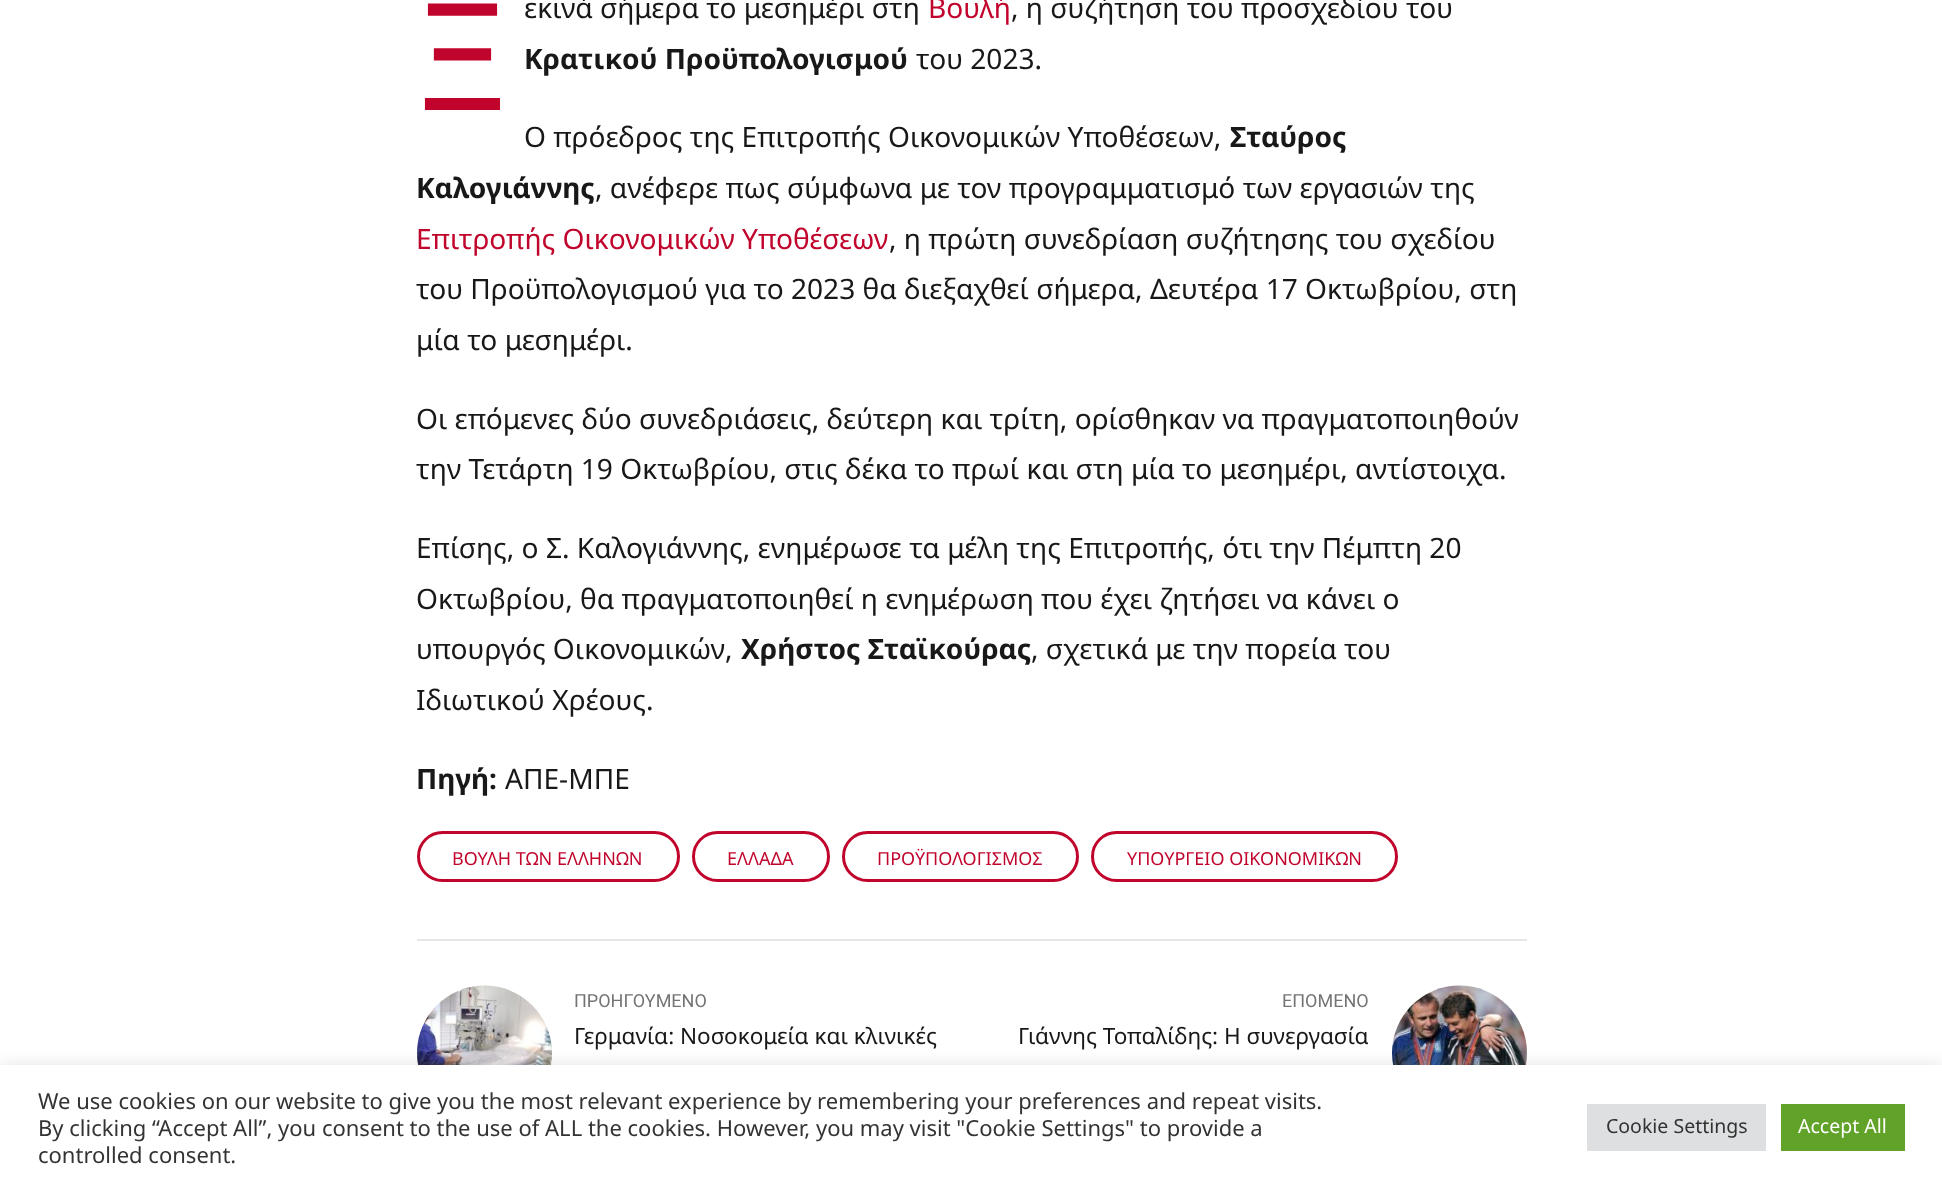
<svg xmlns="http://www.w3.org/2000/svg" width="1942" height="1188">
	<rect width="100%" height="100%" fill="#FFFFFF" />
	<text x="416" y="110" font-family="Noto Sans" font-size="149" fill="#C1042C">Ξ</text>
	<text x="524" y="18" font-family="'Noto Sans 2'" font-size="28.1" fill="#181818">εκινά σήμερα το μεσημέρι στη</text>
	<text x="928" y="18" font-family="'Noto Sans 2'" font-size="28.1" fill="#C1042C">Βουλή</text>
	<text x="1011" y="18" font-family="'Noto Sans 2'" font-size="28.1" fill="#181818">, η συζήτηση του προσχεδίου του</text>
	<text x="524" y="69" font-family="Noto Sans" font-size="28.1" font-weight="700" fill="#181818">Κρατικού Προϋπολογισμού</text>
	<g font-family="'Noto Sans 2'" font-size="28.1" fill="#181818">
		<text x="916" y="69">του 2023.</text>
		<text x="524" y="147">Ο πρόεδρος της Επιτροπής Οικονομικών Υποθέσεων,</text>
	</g>
	<g font-family="Noto Sans" font-size="28.1" font-weight="700" fill="#181818">
		<text x="1230" y="147">Σταύρος</text>
		<text x="416" y="198">Καλογιάννης</text>
	</g>
	<text x="595" y="198" font-family="'Noto Sans 2'" font-size="28.1" fill="#181818">, ανέφερε πως σύμφωνα με τον προγραμματισμό των εργασιών της</text>
	<text x="416" y="249" font-family="'Noto Sans 2'" font-size="28.1" fill="#C1042C">Επιτροπής Οικονομικών Υποθέσεων</text>
	<g font-family="'Noto Sans 2'" font-size="28.1" fill="#181818">
		<text x="889" y="249">, η πρώτη συνεδρίαση συζήτησης του σχεδίου</text>
		<text x="416" y="299">του Προϋπολογισμού για το 2023 θα διεξαχθεί σήμερα, Δευτέρα 17 Οκτωβρίου, στη</text>
		<text x="416" y="350">μία το μεσημέρι.</text>
		<text x="416" y="429">Οι επόμενες δύο συνεδριάσεις, δεύτερη και τρίτη, ορίσθηκαν να πραγματοποιηθούν</text>
		<text x="416" y="479">την Τετάρτη 19 Οκτωβρίου, στις δέκα το πρωί και στη μία το μεσημέρι, αντίστοιχα.</text>
		<text x="416" y="558">Επίσης, ο Σ. Καλογιάννης, ενημέρωσε τα μέλη της Επιτροπής, ότι την Πέμπτη 20</text>
		<text x="416" y="609">Οκτωβρίου, θα πραγματοποιηθεί η ενημέρωση που έχει ζητήσει να κάνει ο</text>
		<text x="416" y="659">υπουργός Οικονομικών,</text>
	</g>
	<text x="741" y="659" font-family="Noto Sans" font-size="28.1" font-weight="700" fill="#181818">Χρήστος Σταϊκούρας</text>
	<g font-family="'Noto Sans 2'" font-size="28.1" fill="#181818">
		<text x="1031" y="659">, σχετικά με την πορεία του</text>
		<text x="416" y="710">Ιδιωτικού Χρέους.</text>
	</g>
	<text x="416" y="789" font-family="Noto Sans" font-size="28.1" font-weight="700" fill="#181818">Πηγή:</text>
	<text x="505" y="789" font-family="'Noto Sans 2'" font-size="28.1" fill="#181818">ΑΠΕ-ΜΠΕ</text>
	<rect x="418.5" y="832.5" width="260" height="48" rx="24" fill="none" stroke="#C1042C" stroke-width="3" />
	<text x="452" y="865" font-family="'Noto Sans 2'" font-size="18" fill="#C1042C">ΒΟΥΛΗ ΤΩΝ ΕΛΛΗΝΩΝ</text>
	<rect x="693.5" y="832.5" width="135" height="48" rx="24" fill="none" stroke="#C1042C" stroke-width="3" />
	<text x="727" y="865" font-family="'Noto Sans 2'" font-size="18" fill="#C1042C">ΕΛΛΑΔΑ</text>
	<rect x="843.5" y="832.5" width="234" height="48" rx="24" fill="none" stroke="#C1042C" stroke-width="3" />
	<text x="877" y="865" font-family="'Noto Sans 2'" font-size="18" fill="#C1042C">ΠΡΟΫΠΟΛΟΓΙΣΜΟΣ</text>
	<rect x="1092.5" y="832.5" width="304" height="48" rx="24" fill="none" stroke="#C1042C" stroke-width="3" />
	<text x="1127" y="865" font-family="'Noto Sans 2'" font-size="18" fill="#C1042C">ΥΠΟΥΡΓΕΙΟ ΟΙΚΟΝΟΜΙΚΩΝ</text>
	<rect x="417" y="939" width="1110" height="2" fill="#E6E6E6" />
	<image x="417" y="985" width="135" height="80" href="assets/img1.png" />
	<text x="574" y="1007" font-family="Roboto" font-size="18" fill="#747474">ΠΡΟΗΓΟΥΜΕΝΟ</text>
	<text x="574" y="1044" font-family="'Noto Sans 2'" font-size="22.5" fill="#181818">Γερμανία: Νοσοκομεία και κλινικές</text>
	<text x="1282" y="1007" font-family="Roboto" font-size="18" fill="#747474">ΕΠΟΜΕΝΟ</text>
	<text x="1018" y="1044" font-family="'Noto Sans 2'" font-size="22.5" fill="#181818">Γιάννης Τοπαλίδης: Η συνεργασία</text>
	<image x="1392" y="985" width="135" height="80" href="assets/img2.png" />
	<rect x="0" y="1064" width="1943" height="123" fill="#ACABAB" fill-opacity="0.3" filter="blur(7.5px)" />
	<rect x="0" y="1065" width="1942" height="123" fill="#FFFFFF" />
	<g font-family="'Noto Sans 2'" font-size="22" fill="#333333">
		<text x="38" y="1109">We use cookies on our website to give you the most relevant experience by remembering your preferences and repeat visits.</text>
		<text x="38" y="1136">By clicking “Accept All”, you consent to the use of ALL the cookies. However, you may visit "Cookie Settings" to provide a</text>
		<text x="38" y="1163">controlled consent.</text>
	</g>
	<rect x="1587" y="1104" width="179" height="47" fill="#DEDFE0" />
	<text x="1606" y="1133" font-family="'Noto Sans 2'" font-size="19.5" fill="#333333">Cookie Settings</text>
	<rect x="1781" y="1104" width="124" height="47" fill="#61A229" />
	<text x="1798" y="1133" font-family="'Noto Sans 2'" font-size="19.5" fill="#FFFFFF">Accept All</text>
</svg>
